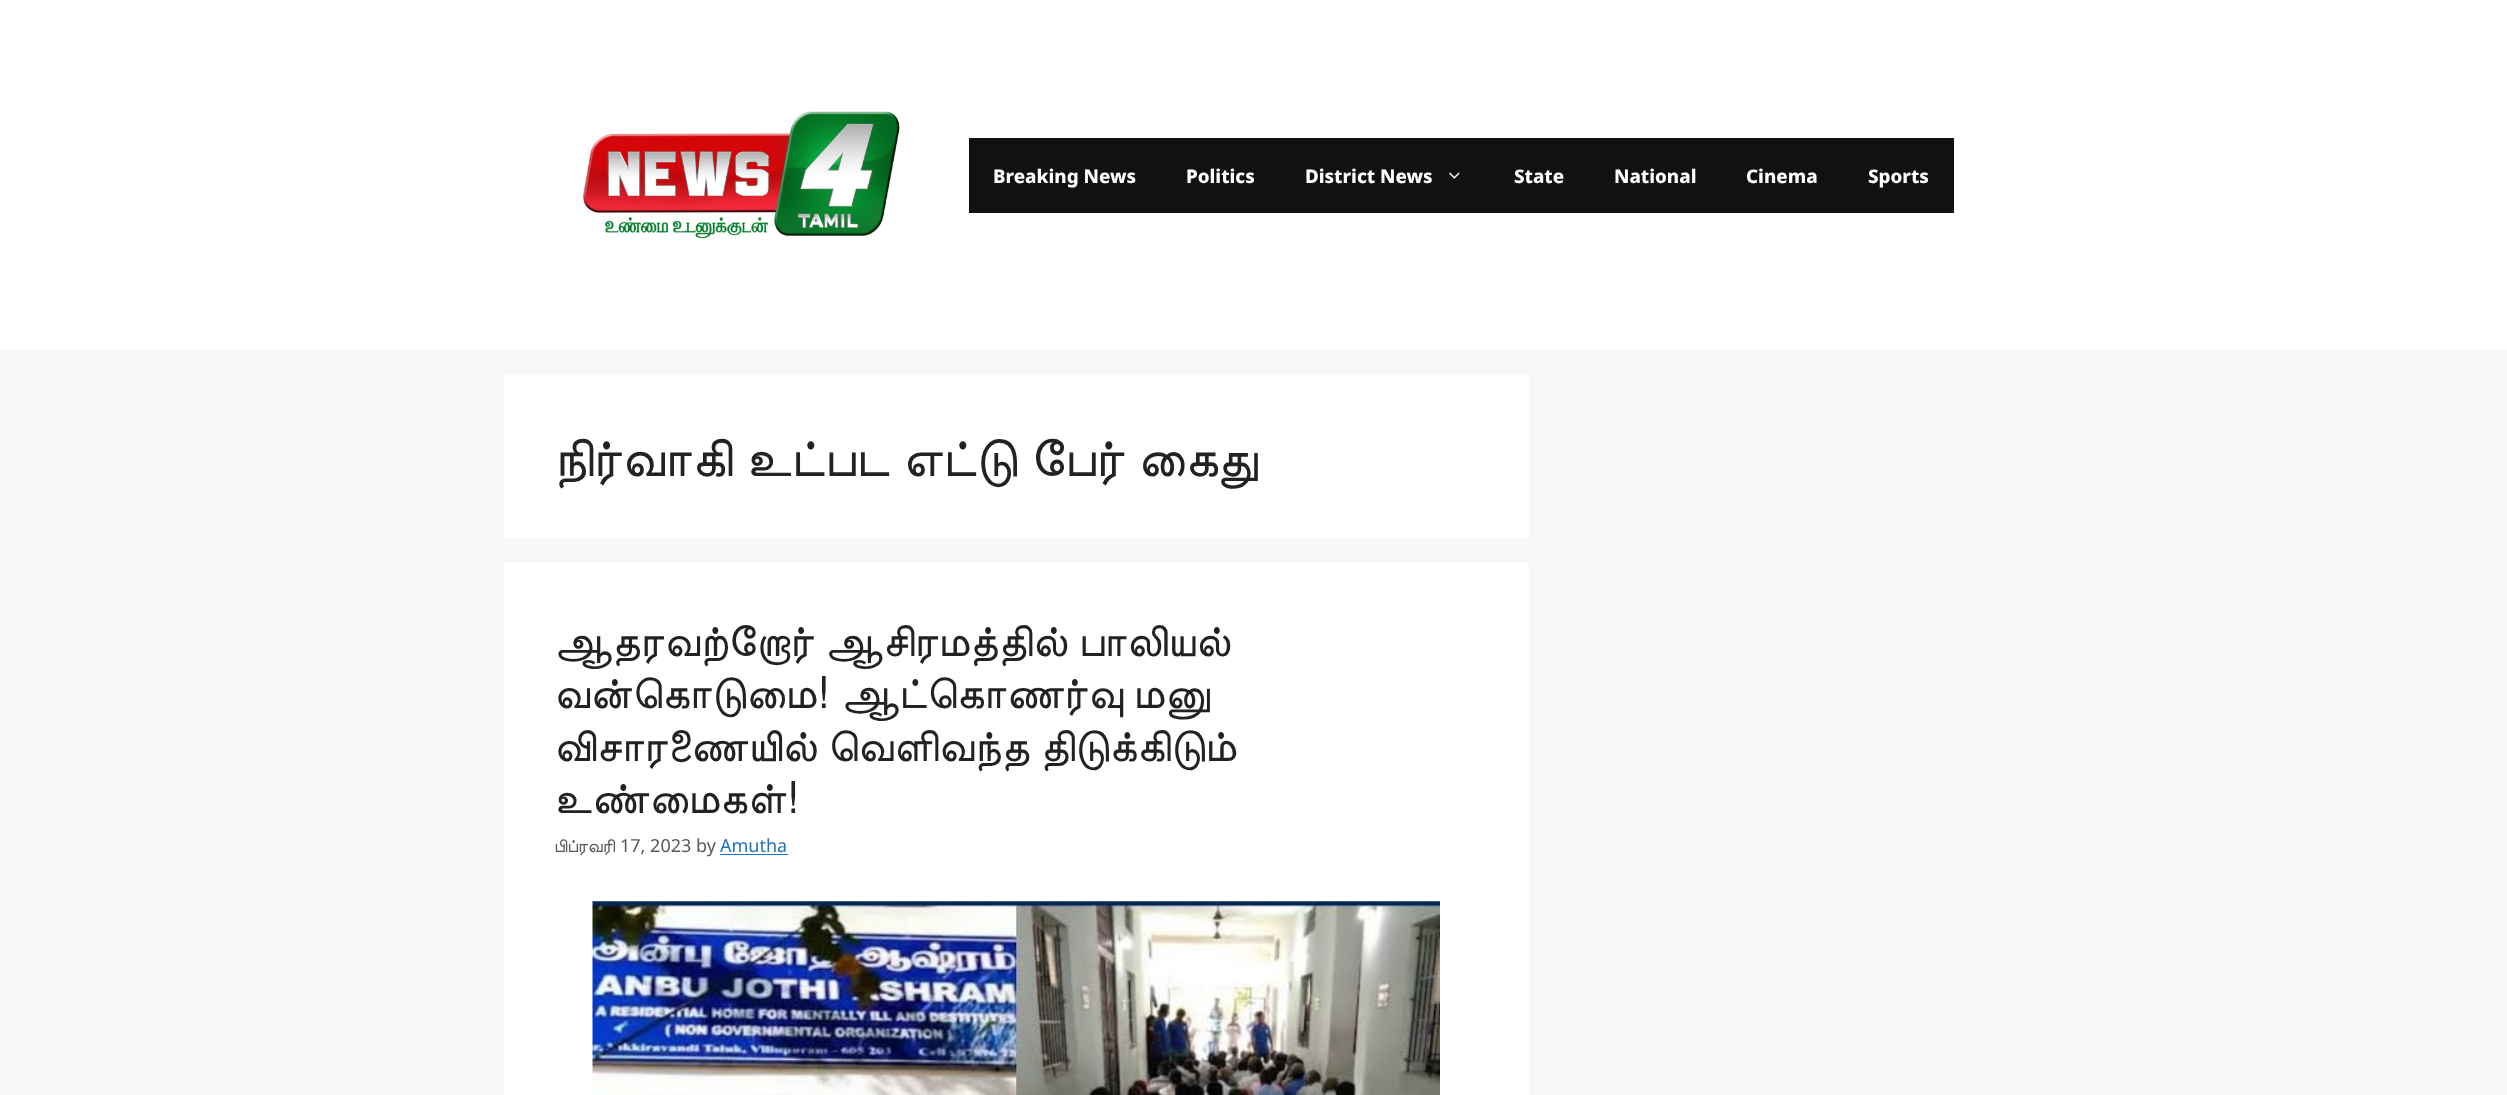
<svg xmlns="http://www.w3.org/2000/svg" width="2507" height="1095">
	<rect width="100%" height="100%" fill="#F7F8F9" />
	<rect x="0" y="0" width="2507" height="350" fill="#FFFFFF" />
	<image x="583" y="111" width="317" height="128" href="assets/img1.png" />
	<rect x="969" y="138" width="985" height="75" fill="#111111" />
	<g font-family="Noto Sans" font-size="18.75" font-weight="800" fill="#FFFFFF">
		<text x="993" y="183">Breaking News</text>
		<text x="1186" y="183">Politics</text>
		<text x="1305" y="183">District News</text>
	</g>
	<image x="1449" y="172" width="11" height="7" href="assets/img2.png" />
	<g font-family="Noto Sans" font-size="18.75" font-weight="800" fill="#FFFFFF">
		<text x="1514" y="183">State</text>
		<text x="1614" y="183">National</text>
		<text x="1746" y="183">Cinema</text>
		<text x="1868" y="183">Sports</text>
	</g>
	<rect x="504" y="375" width="1025" height="163" fill="#FFFFFF" />
	<text x="554" y="476" word-spacing="0.5" font-family="FreeSans" font-size="52.5" fill="#222222">நிர்வாகி உட்பட எட்டு பேர் கைது</text>
	<rect x="504" y="563" width="1025" height="532" fill="#FFFFFF" />
	<g font-family="FreeSans" font-size="43.75" fill="#222222">
		<text x="554" y="656">ஆதரவற்றோர் ஆசிரமத்தில் பாலியல்</text>
		<text x="554" y="708" word-spacing="-1">வன்கொடுமை! ஆட்கொணர்வு மனு</text>
		<text x="554" y="761">விசாரணையில் வெளிவந்த திடுக்கிடும்</text>
		<text x="554" y="813">உண்மைகள்!</text>
	</g>
	<text x="554" y="852" font-family="FreeSans" font-size="18" fill="#575760">பிப்ரவரி</text>
	<text x="620" y="852" font-family="Noto Sans" font-size="18" fill="#575760">17, 2023 by</text>
	<text x="720" y="852" font-family="Noto Sans" font-size="18" fill="#1E73BE">Amutha</text>
	<rect x="720" y="854" width="68" height="1" fill="#1E73BE" />
	<image x="592" y="901" width="848" height="194" href="assets/img3.png" />
</svg>
